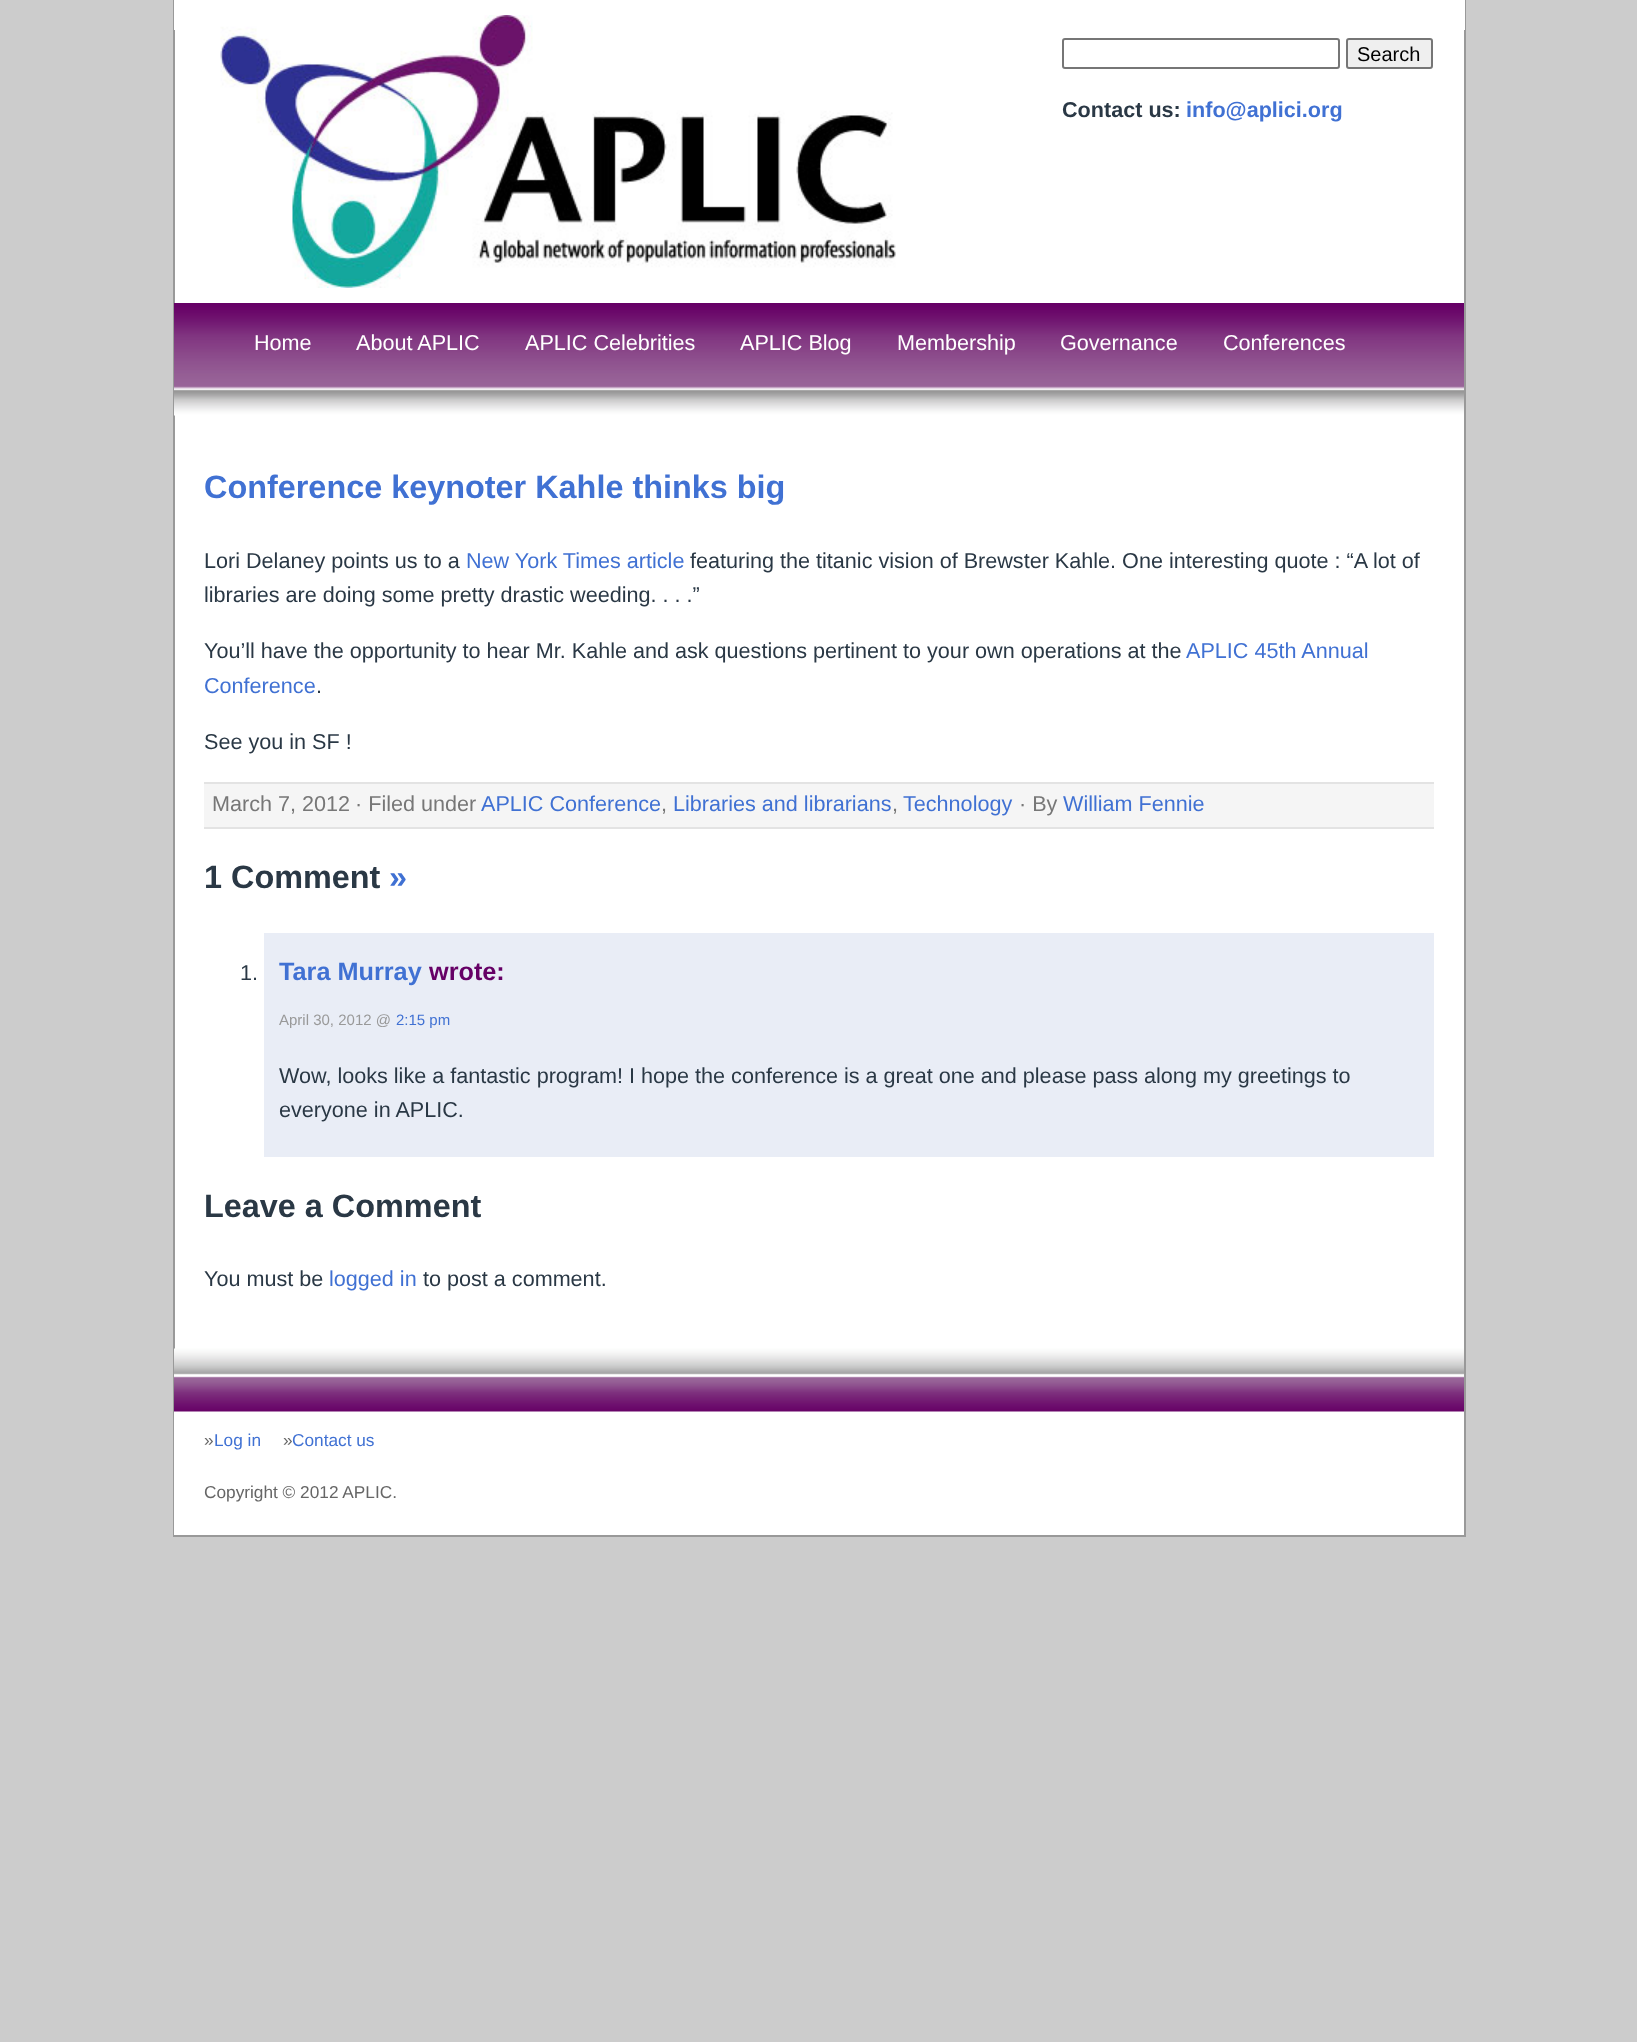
<svg xmlns="http://www.w3.org/2000/svg" width="1637" height="2042">
	<rect width="100%" height="100%" fill="#CCCCCC" />
	<rect x="175" y="0" width="1289" height="1349" fill="#FFFFFF" />
	<rect x="1464" y="0" width="2" height="1536" fill="#999999" />
	<rect x="173" y="1535" width="1293" height="2" fill="#999999" />
	<rect x="173" y="0" width="2" height="1536" fill="#999999" />
	<rect x="1464" y="0" width="1" height="30" fill="#FFFFFF" />
	<rect x="174" y="0" width="1" height="30" fill="#FFFFFF" />
	<image x="220" y="15" width="676" height="273" href="assets/img1.png" />
	<rect x="1063" y="39" width="276" height="29" rx="2" fill="none" stroke="#767676" stroke-width="2" />
	<rect x="1347" y="39" width="85" height="29" rx="2" fill="#EFEFEF" stroke="#767676" stroke-width="2" />
	<text x="1357" y="61" font-family="Liberation Sans" font-size="20" fill="#000000">Search</text>
	<text x="1062" y="117" font-family="Liberation Sans" font-size="21.6" font-weight="700" fill="#2A3845">Contact us:</text>
	<text x="1186" y="117" font-family="Liberation Sans" font-size="21.6" font-weight="700" fill="#4071D3">info@aplici.org</text>
	<image x="174" y="303" width="1290" height="113" href="assets/img2.png" />
	<g font-family="Liberation Sans" font-size="21.6" fill="#FFFFFF">
		<text x="254" y="350">Home</text>
		<text x="356" y="350">About APLIC</text>
		<text x="525" y="350">APLIC Celebrities</text>
		<text x="740" y="350">APLIC Blog</text>
		<text x="897" y="350">Membership</text>
		<text x="1060" y="350">Governance</text>
		<text x="1223" y="350">Conferences</text>
	</g>
	<text x="204" y="498" font-family="Liberation Sans" font-size="32.4" font-weight="700" fill="#4071D3">Conference keynoter Kahle thinks big</text>
	<text x="204" y="568" font-family="Liberation Sans" font-size="21.6" fill="#2A3845">Lori Delaney points us to a</text>
	<text x="466" y="568" font-family="Liberation Sans" font-size="21.6" fill="#4071D3">New York Times article</text>
	<g font-family="Liberation Sans" font-size="21.6" fill="#2A3845">
		<text x="690" y="568">featuring the titanic vision of Brewster Kahle. One interesting quote : “A lot of</text>
		<text x="204" y="602">libraries are doing some pretty drastic weeding. . . .”</text>
		<text x="204" y="658">You’ll have the opportunity to hear Mr. Kahle and ask questions pertinent to your own operations at the</text>
	</g>
	<g font-family="Liberation Sans" font-size="21.6" fill="#4071D3">
		<text x="1186" y="658">APLIC 45th Annual</text>
		<text x="204" y="693">Conference</text>
	</g>
	<g font-family="Liberation Sans" font-size="21.6" fill="#2A3845">
		<text x="316" y="693">.</text>
		<text x="204" y="749">See you in SF !</text>
	</g>
	<rect x="204" y="784" width="1230" height="43" fill="#F5F5F5" />
	<rect x="204" y="782" width="1230" height="2" fill="#E3E3E3" />
	<rect x="204" y="827" width="1230" height="2" fill="#E3E3E3" />
	<g font-family="Liberation Sans" font-size="21.6" fill="#777777">
		<text x="212" y="811">March 7, 2012</text>
		<text x="355" y="811">· Filed under</text>
	</g>
	<text x="481" y="811" font-family="Liberation Sans" font-size="21.6" fill="#4071D3">APLIC Conference</text>
	<text x="661" y="811" font-family="Liberation Sans" font-size="21.6" fill="#777777">,</text>
	<text x="673" y="811" font-family="Liberation Sans" font-size="21.6" fill="#4071D3">Libraries and librarians</text>
	<text x="892" y="811" font-family="Liberation Sans" font-size="21.6" fill="#777777">,</text>
	<text x="903" y="811" font-family="Liberation Sans" font-size="21.6" fill="#4071D3">Technology</text>
	<text x="1019" y="811" font-family="Liberation Sans" font-size="21.6" fill="#777777">· By</text>
	<text x="1063" y="811" font-family="Liberation Sans" font-size="21.6" fill="#4071D3">William Fennie</text>
	<text x="204" y="888" font-family="Liberation Sans" font-size="32.4" font-weight="700" fill="#2A3845">1 Comment</text>
	<text x="389" y="888" font-family="Liberation Sans" font-size="32.4" font-weight="700" fill="#4071D3">»</text>
	<rect x="264" y="933" width="1170" height="224" fill="#E9EDF6" />
	<text x="240" y="980" font-family="Liberation Sans" font-size="21.6" fill="#2A3845">1.</text>
	<text x="279" y="980" font-family="Liberation Sans" font-size="25.25" font-weight="700" fill="#4071D3">Tara Murray</text>
	<text x="429" y="980" font-family="Liberation Sans" font-size="25.25" font-weight="700" fill="#660066">wrote:</text>
	<text x="279" y="1025" font-family="Liberation Sans" font-size="15" fill="#999999">April 30, 2012 @</text>
	<text x="396" y="1025" font-family="Liberation Sans" font-size="15" fill="#4071D3">2:15 pm</text>
	<g font-family="Liberation Sans" font-size="21.6" fill="#2A3845">
		<text x="279" y="1083">Wow, looks like a fantastic program! I hope the conference is a great one and please pass along my greetings to</text>
		<text x="279" y="1117">everyone in APLIC.</text>
	</g>
	<text x="204" y="1217" font-family="Liberation Sans" font-size="32.4" font-weight="700" fill="#2A3845">Leave a Comment</text>
	<text x="204" y="1286" font-family="Liberation Sans" font-size="21.6" fill="#2A3845">You must be</text>
	<text x="329" y="1286" font-family="Liberation Sans" font-size="21.6" fill="#4071D3">logged in</text>
	<text x="423" y="1286" font-family="Liberation Sans" font-size="21.6" fill="#2A3845">to post a comment.</text>
	<rect x="174" y="1411" width="1290" height="124" fill="#FFFFFF" />
	<image x="174" y="1348" width="1290" height="64" href="assets/img3.png" />
	<text x="204" y="1446" font-family="Liberation Sans" font-size="17.25" fill="#666666">»</text>
	<text x="214" y="1446" font-family="Liberation Sans" font-size="17.25" fill="#4071D3">Log in</text>
	<text x="283" y="1446" font-family="Liberation Sans" font-size="17.25" fill="#666666">»</text>
	<text x="292" y="1446" font-family="Liberation Sans" font-size="17.25" fill="#4071D3">Contact us</text>
	<text x="204" y="1498" font-family="Liberation Sans" font-size="17.25" fill="#666666">Copyright © 2012 APLIC.</text>
</svg>
